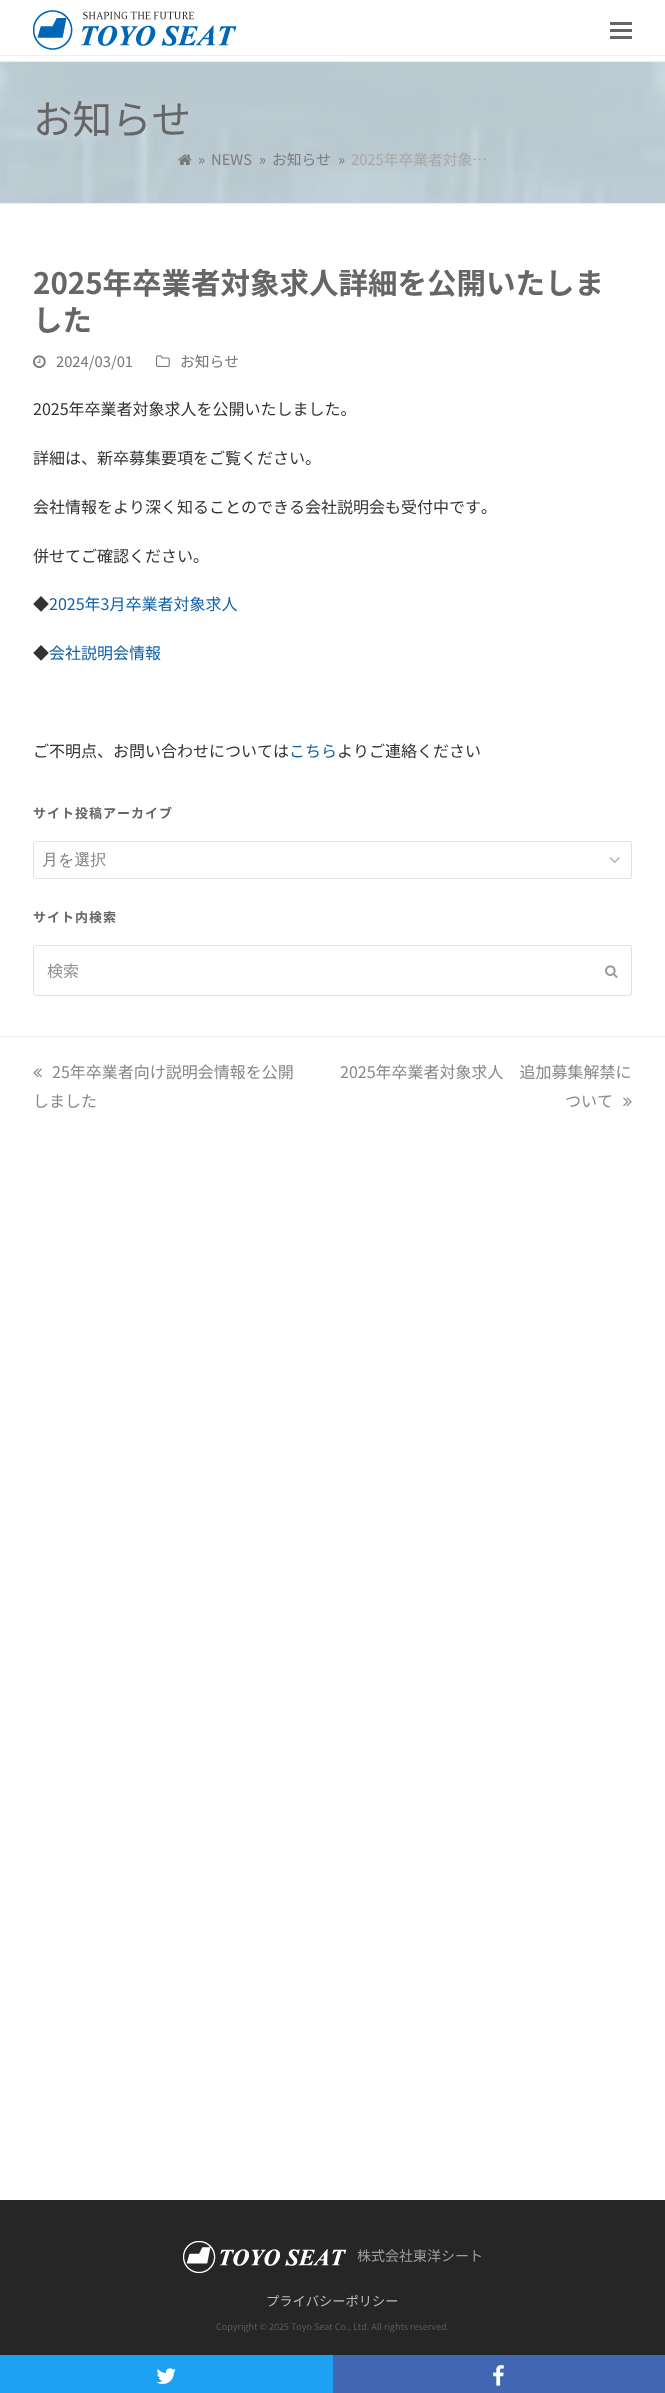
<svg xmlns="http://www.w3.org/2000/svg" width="665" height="2393">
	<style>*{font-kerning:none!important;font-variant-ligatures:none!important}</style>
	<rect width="100%" height="100%" fill="#FFFFFF" />
	<rect x="0" y="55" width="665" height="1" fill="#EEEEEE" />
	<image x="33" y="10" width="204" height="40" href="assets/img1.png" />
	<rect x="610" y="29" width="22" height="3" fill="#666666" />
	<rect x="610" y="22" width="22" height="3" fill="#666666" />
	<rect x="610" y="36" width="22" height="3" fill="#666666" />
	<image x="0" y="62" width="665" height="141" href="assets/img2.png" />
	<rect x="0" y="61" width="665" height="1" fill="#EEEEEE" />
	<rect x="0" y="203" width="665" height="1" fill="#EEEEEE" />
	<text x="33" y="134" font-family="Noto Sans JP" font-size="39.5" fill="#666666">お知らせ</text>
	<image x="178" y="154" width="14" height="11" href="assets/img3.png" />
	<g font-family="Noto Sans JP" font-size="14.75" fill="#7C7C7C">
		<text x="198" y="165">»</text>
		<text x="211" y="165">NEWS</text>
		<text x="259" y="165">»</text>
		<text x="272" y="165">お知らせ</text>
		<text x="338" y="165">»</text>
	</g>
	<text x="351" y="165" font-family="Noto Sans JP" font-size="14.75" fill="#A8A8A8">2025年卒業者対象…</text>
	<g font-family="Noto Sans JP" font-size="29.5" font-weight="700" fill="#666666">
		<text x="33" y="294">2025年卒業者対象求人詳細を公開いたしま</text>
		<text x="33" y="331">した</text>
	</g>
	<image x="33" y="355" width="13" height="13" href="assets/img4.png" />
	<text x="56" y="367" font-family="Noto Sans JP" font-size="14.75" fill="#757575">2024/03/01</text>
	<image x="156" y="355" width="14" height="12" href="assets/img5.png" />
	<text x="180" y="367" font-family="Noto Sans JP" font-size="14.75" fill="#757575">お知らせ</text>
	<g font-family="Noto Sans JP" font-size="16" fill="#333333">
		<text x="33" y="415">2025年卒業者対象求人を公開いたしました。</text>
		<text x="33" y="464">詳細は、新卒募集要項をご覧ください。</text>
		<text x="33" y="513">会社情報をより深く知ることのできる会社説明会も受付中です。</text>
		<text x="33" y="562">併せてご確認ください。</text>
		<text x="33" y="610">◆</text>
	</g>
	<text x="49" y="610" font-family="Noto Sans JP" font-size="16" fill="#1161A6">2025年3月卒業者対象求人</text>
	<text x="33" y="659" font-family="Noto Sans JP" font-size="16" fill="#333333">◆</text>
	<text x="49" y="659" font-family="Noto Sans JP" font-size="16" fill="#1161A6">会社説明会情報</text>
	<text x="33" y="757" font-family="Noto Sans JP" font-size="16" fill="#333333">ご不明点、お問い合わせについては</text>
	<text x="289" y="757" font-family="Noto Sans JP" font-size="16" fill="#1161A6">こちら</text>
	<text x="337" y="757" font-family="Noto Sans JP" font-size="16" fill="#333333">よりご連絡ください</text>
	<rect x="0" y="2355" width="333" height="38" fill="#1DA1F2" />
	<image x="156" y="2368" width="20" height="16" href="assets/img6.png" />
	<rect x="333" y="2355" width="332" height="38" fill="#4267B2" />
	<image x="493" y="2365" width="11" height="21" href="assets/img7.png" />
	<text x="33" y="818" font-family="Noto Sans JP" font-size="13" font-weight="700" letter-spacing="1" fill="#666666">サイト投稿アーカイブ</text>
	<rect x="33.5" y="841.5" width="598" height="37" rx="2.5" fill="none" stroke="#E1E1E1" />
	<text x="42" y="865" font-family="WenQuanYi Zen Hei" font-size="16" font-weight="500" fill="#7C7C7C">月を選択</text>
	<image x="609" y="857" width="11" height="6" href="assets/img8.png" />
	<text x="33" y="922" font-family="Noto Sans JP" font-size="13" font-weight="700" letter-spacing="1" fill="#666666">サイト内検索</text>
	<rect x="33.5" y="945.5" width="598" height="50" rx="2.5" fill="none" stroke="#E1E1E1" />
	<text x="47" y="977" font-family="Noto Sans JP" font-size="16" fill="#909090">検索</text>
	<image x="605" y="965" width="13" height="13" href="assets/img9.png" />
	<rect x="0" y="1036" width="665" height="1" fill="#EEEEEE" />
	<image x="33" y="1068" width="9" height="10" href="assets/img10.png" />
	<g font-family="Noto Sans JP" font-size="16" fill="#888888">
		<text x="52" y="1078">25年卒業者向け説明会情報を公開</text>
		<text x="33" y="1107">しました</text>
		<text x="340" y="1078">2025年卒業者対象求人　追加募集解禁に</text>
		<text x="565" y="1107">ついて</text>
	</g>
	<image x="623" y="1097" width="9" height="10" href="assets/img11.png" />
	<rect x="0" y="2200" width="665" height="155" fill="#262626" />
	<image x="183" y="2241" width="164" height="32" href="assets/img12.png" />
	<text x="357" y="2261" font-family="Noto Sans JP" font-size="14" fill="#9E9E9E">株式会社東洋シート</text>
	<text x="266" y="2306" font-family="Noto Sans JP" font-size="13.25" fill="#BBBBBB">プライバシーポリシー</text>
	<text x="216" y="2330" font-family="Noto Sans JP" font-size="9" fill="#5B5B5B">Copyright © 2025 Toyo Seat Co., Ltd. All rights reserved.</text>
</svg>
